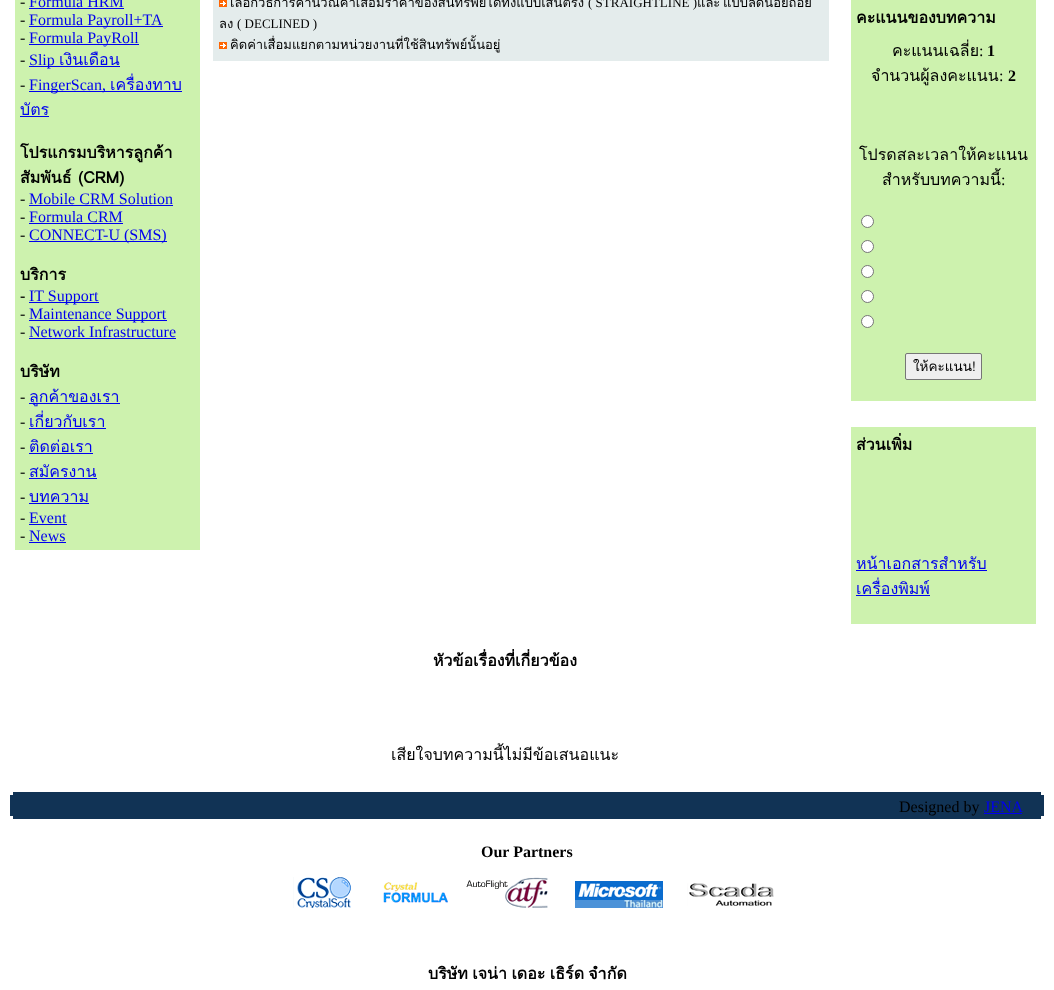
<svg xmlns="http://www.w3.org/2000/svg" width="1054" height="990">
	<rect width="100%" height="100%" fill="#FFFFFF" />
	<rect x="15" y="0" width="185" height="550" fill="#CDF2AE" />
	<text x="20" y="7" font-family="Liberation Serif" font-size="16" fill="#000000">-</text>
	<text x="29" y="7" font-family="Liberation Serif" font-size="16" fill="#0000EE">Formula HRM</text>
	<rect x="29" y="8" width="95" height="1" fill="#0000EE" />
	<text x="20" y="25" font-family="Liberation Serif" font-size="16" fill="#000000">-</text>
	<rect x="29" y="26" width="134" height="1" fill="#0000EE" />
	<text x="29" y="25" font-family="Liberation Serif" font-size="16" fill="#0000EE">Formula Payroll+TA</text>
	<text x="20" y="43" font-family="Liberation Serif" font-size="16" fill="#000000">-</text>
	<rect x="29" y="44" width="110" height="1" fill="#0000EE" />
	<text x="29" y="43" font-family="Liberation Serif" font-size="16" fill="#0000EE">Formula PayRoll</text>
	<text x="20" y="65" font-family="Liberation Serif" font-size="16" fill="#000000">-</text>
	<rect x="29" y="66" width="91" height="1" fill="#0000EE" />
	<text x="29" y="65" font-family="Liberation Serif" font-size="16" fill="#0000EE">Slip</text>
	<text x="59" y="65" font-family="Loma" font-size="16" fill="#0000EE">เงินเดือน</text>
	<text x="20" y="90" font-family="Liberation Serif" font-size="16" fill="#000000">-</text>
	<rect x="29" y="91" width="153" height="1" fill="#0000EE" />
	<text x="29" y="90" font-family="Liberation Serif" font-size="16" fill="#0000EE">FingerScan,</text>
	<g font-family="Loma" font-size="16" fill="#0000EE">
		<text x="110" y="90">เครื่องทาบ</text>
		<text x="20" y="115">บัตร</text>
	</g>
	<rect x="20" y="116" width="29" height="1" fill="#0000EE" />
	<g font-family="Loma" font-size="16" font-weight="700" fill="#000000">
		<text x="20" y="158">โปรแกรมบริหารลูกค้า</text>
		<text x="20" y="183" word-spacing="1">สัมพันธ์ (CRM)</text>
	</g>
	<text x="20" y="204" font-family="Liberation Serif" font-size="16" fill="#000000">-</text>
	<text x="29" y="204" font-family="Liberation Serif" font-size="16" fill="#0000EE">Mobile CRM Solution</text>
	<rect x="29" y="205" width="144" height="1" fill="#0000EE" />
	<text x="20" y="222" font-family="Liberation Serif" font-size="16" fill="#000000">-</text>
	<text x="29" y="222" font-family="Liberation Serif" font-size="16" fill="#0000EE">Formula CRM</text>
	<rect x="29" y="223" width="94" height="1" fill="#0000EE" />
	<text x="20" y="240" font-family="Liberation Serif" font-size="16" fill="#000000">-</text>
	<rect x="29" y="241" width="138" height="1" fill="#0000EE" />
	<text x="29" y="240" font-family="Liberation Serif" font-size="16" fill="#0000EE">CONNECT-U (SMS)</text>
	<text x="20" y="280" font-family="Loma" font-size="16" font-weight="700" fill="#000000">บริการ</text>
	<text x="20" y="301" font-family="Liberation Serif" font-size="16" font-weight="700" fill="#000000">-</text>
	<rect x="29" y="302" width="70" height="1" fill="#0000EE" />
	<text x="29" y="301" font-family="Liberation Serif" font-size="16" fill="#0000EE">IT Support</text>
	<text x="20" y="319" font-family="Liberation Serif" font-size="16" fill="#000000">-</text>
	<rect x="29" y="320" width="138" height="1" fill="#0000EE" />
	<text x="29" y="319" font-family="Liberation Serif" font-size="16" fill="#0000EE">Maintenance Support</text>
	<text x="20" y="337" font-family="Liberation Serif" font-size="16" fill="#000000">-</text>
	<text x="29" y="337" font-family="Liberation Serif" font-size="16" fill="#0000EE">Network Infrastructure</text>
	<rect x="29" y="338" width="147" height="1" fill="#0000EE" />
	<text x="20" y="377" font-family="Loma" font-size="16" font-weight="700" fill="#000000">บริษัท</text>
	<text x="20" y="402" font-family="Liberation Serif" font-size="16" fill="#000000">-</text>
	<rect x="29" y="403" width="91" height="1" fill="#0000EE" />
	<text x="29" y="402" font-family="Loma" font-size="16" fill="#0000EE">ลูกค้าของเรา</text>
	<text x="20" y="427" font-family="Liberation Serif" font-size="16" fill="#000000">-</text>
	<rect x="29" y="428" width="77" height="1" fill="#0000EE" />
	<text x="29" y="427" font-family="Loma" font-size="16" fill="#0000EE">เกี่ยวกับเรา</text>
	<text x="20" y="452" font-family="Liberation Serif" font-size="16" fill="#000000">-</text>
	<text x="29" y="452" font-family="Loma" font-size="16" fill="#0000EE">ติดต่อเรา</text>
	<rect x="29" y="453" width="64" height="1" fill="#0000EE" />
	<text x="20" y="477" font-family="Liberation Serif" font-size="16" fill="#000000">-</text>
	<rect x="29" y="478" width="68" height="1" fill="#0000EE" />
	<text x="29" y="477" font-family="Loma" font-size="16" fill="#0000EE">สมัครงาน</text>
	<text x="20" y="502" font-family="Liberation Serif" font-size="16" fill="#000000">-</text>
	<text x="29" y="502" font-family="Loma" font-size="16" fill="#0000EE">บทความ</text>
	<rect x="29" y="503" width="60" height="1" fill="#0000EE" />
	<text x="20" y="523" font-family="Liberation Serif" font-size="16" fill="#000000">-</text>
	<text x="29" y="523" font-family="Liberation Serif" font-size="16" fill="#0000EE">Event</text>
	<rect x="29" y="524" width="38" height="1" fill="#0000EE" />
	<text x="20" y="541" font-family="Liberation Serif" font-size="16" fill="#000000">-</text>
	<text x="29" y="541" font-family="Liberation Serif" font-size="16" fill="#0000EE">News</text>
	<rect x="29" y="542" width="37" height="1" fill="#0000EE" />
	<rect x="213" y="0" width="616" height="61" fill="#E4ECEC" />
	<image x="219" y="0" width="8" height="7" href="assets/img1.png" />
	<text x="230" y="7" font-family="Loma" font-size="13" fill="#000000">เลือกวิธีการคำนวณค่าเสื่อมราคาของสินทรัพย์ได้ทั้งแบบเส้นตรง</text>
	<text x="588" y="7" font-family="Liberation Serif" font-size="13" fill="#000000">( STRAIGHTLINE )</text>
	<g font-family="Loma" font-size="13" fill="#000000">
		<text x="697" y="7">และ</text>
		<text x="723" y="7">แบบลดน้อยถอย</text>
		<text x="219" y="28">ลง</text>
	</g>
	<text x="237" y="28" font-family="Liberation Serif" font-size="13" fill="#000000">( DECLINED )</text>
	<image x="219" y="42" width="8" height="7" href="assets/img1.png" />
	<text x="230" y="49" font-family="Loma" font-size="13" fill="#000000">คิดค่าเสื่อมแยกตามหน่วยงานที่ใช้สินทรัพย์นั้นอยู่</text>
	<rect x="851" y="0" width="185" height="401" fill="#CDF2AE" />
	<text x="856" y="23" font-family="Loma" font-size="16" font-weight="700" fill="#000000">คะแนนของบทความ</text>
	<text x="892" y="56" font-family="Loma" font-size="16" fill="#000000">คะแนนเฉลี่ย</text>
	<text x="979" y="56" font-family="Liberation Serif" font-size="16" fill="#000000">:</text>
	<text x="987" y="56" font-family="Liberation Serif" font-size="16" font-weight="700" fill="#000000">1</text>
	<text x="871" y="81" font-family="Loma" font-size="16" fill="#000000">จำนวนผู้ลงคะแนน</text>
	<text x="999" y="81" font-family="Liberation Serif" font-size="16" fill="#000000">:</text>
	<text x="1008" y="81" font-family="Liberation Serif" font-size="16" font-weight="700" fill="#000000">2</text>
	<g font-family="Loma" font-size="16" fill="#000000">
		<text x="859" y="160">โปรดสละเวลาให้คะแนน</text>
		<text x="882" y="185">สำหรับบทความนี้</text>
	</g>
	<text x="1001" y="185" font-family="Liberation Serif" font-size="16" fill="#000000">:</text>
	<circle cx="867.5" cy="221.5" r="6" fill="#FFFFFF" stroke="#767676" />
	<circle cx="867.5" cy="246.5" r="6" fill="#FFFFFF" stroke="#767676" />
	<circle cx="867.5" cy="271.5" r="6" fill="#FFFFFF" stroke="#767676" />
	<circle cx="867.5" cy="296.5" r="6" fill="#FFFFFF" stroke="#767676" />
	<circle cx="867.5" cy="321.5" r="6" fill="#FFFFFF" stroke="#767676" />
	<rect x="905.5" y="353.5" width="76" height="26" rx="1.5" fill="#EFEFEF" stroke="#767676" />
	<text x="913" y="371" font-family="Loma" font-size="13.5" fill="#000000">ให้คะแนน!</text>
	<rect x="851" y="427" width="185" height="197" fill="#CDF2AE" />
	<text x="856" y="450" font-family="Loma" font-size="16" font-weight="700" fill="#000000">ส่วนเพิ่ม</text>
	<text x="856" y="569" font-family="Loma" font-size="16" fill="#0000EE">หน้าเอกสารสำหรับ</text>
	<rect x="856" y="570" width="131" height="1" fill="#0000EE" />
	<text x="856" y="594" font-family="Loma" font-size="16" fill="#0000EE">เครื่องพิมพ์</text>
	<rect x="856" y="595" width="74" height="1" fill="#0000EE" />
	<text x="433" y="666" font-family="Loma" font-size="16" font-weight="700" fill="#000000">หัวข้อเรื่องที่เกี่ยวข้อง</text>
	<text x="391" y="760" font-family="Loma" font-size="16" fill="#000000">เสียใจบทความนี้ไม่มีข้อเสนอแนะ</text>
	<rect x="13" y="792" width="1028" height="3" fill="#113355" />
	<rect x="10" y="795" width="1034" height="21" fill="#113355" />
	<text x="899" y="812" font-family="Liberation Serif" font-size="16" fill="#000000">Designed by</text>
	<text x="984" y="812" font-family="Liberation Serif" font-size="16" fill="#0000EE">JENA</text>
	<rect x="984" y="813" width="38" height="1" fill="#0000EE" />
	<rect x="13" y="816" width="1028" height="3" fill="#113355" />
	<text x="481" y="857" font-family="Liberation Serif" font-size="16" font-weight="700" fill="#000000">Our Partners</text>
	<image x="293" y="877" width="58" height="31" href="assets/img2.png" />
	<image x="383" y="882" width="65" height="21" href="assets/img3.png" />
	<image x="466" y="877" width="82" height="31" href="assets/img4.png" />
	<image x="575" y="881" width="88" height="27" href="assets/img5.png" />
	<image x="687" y="883" width="87" height="23" href="assets/img6.png" />
	<text x="428" y="979" word-spacing="-1" font-family="Loma" font-size="16" font-weight="700" fill="#000000">บริษัท เจน่า เดอะ เธิร์ด จำกัด</text>
</svg>
